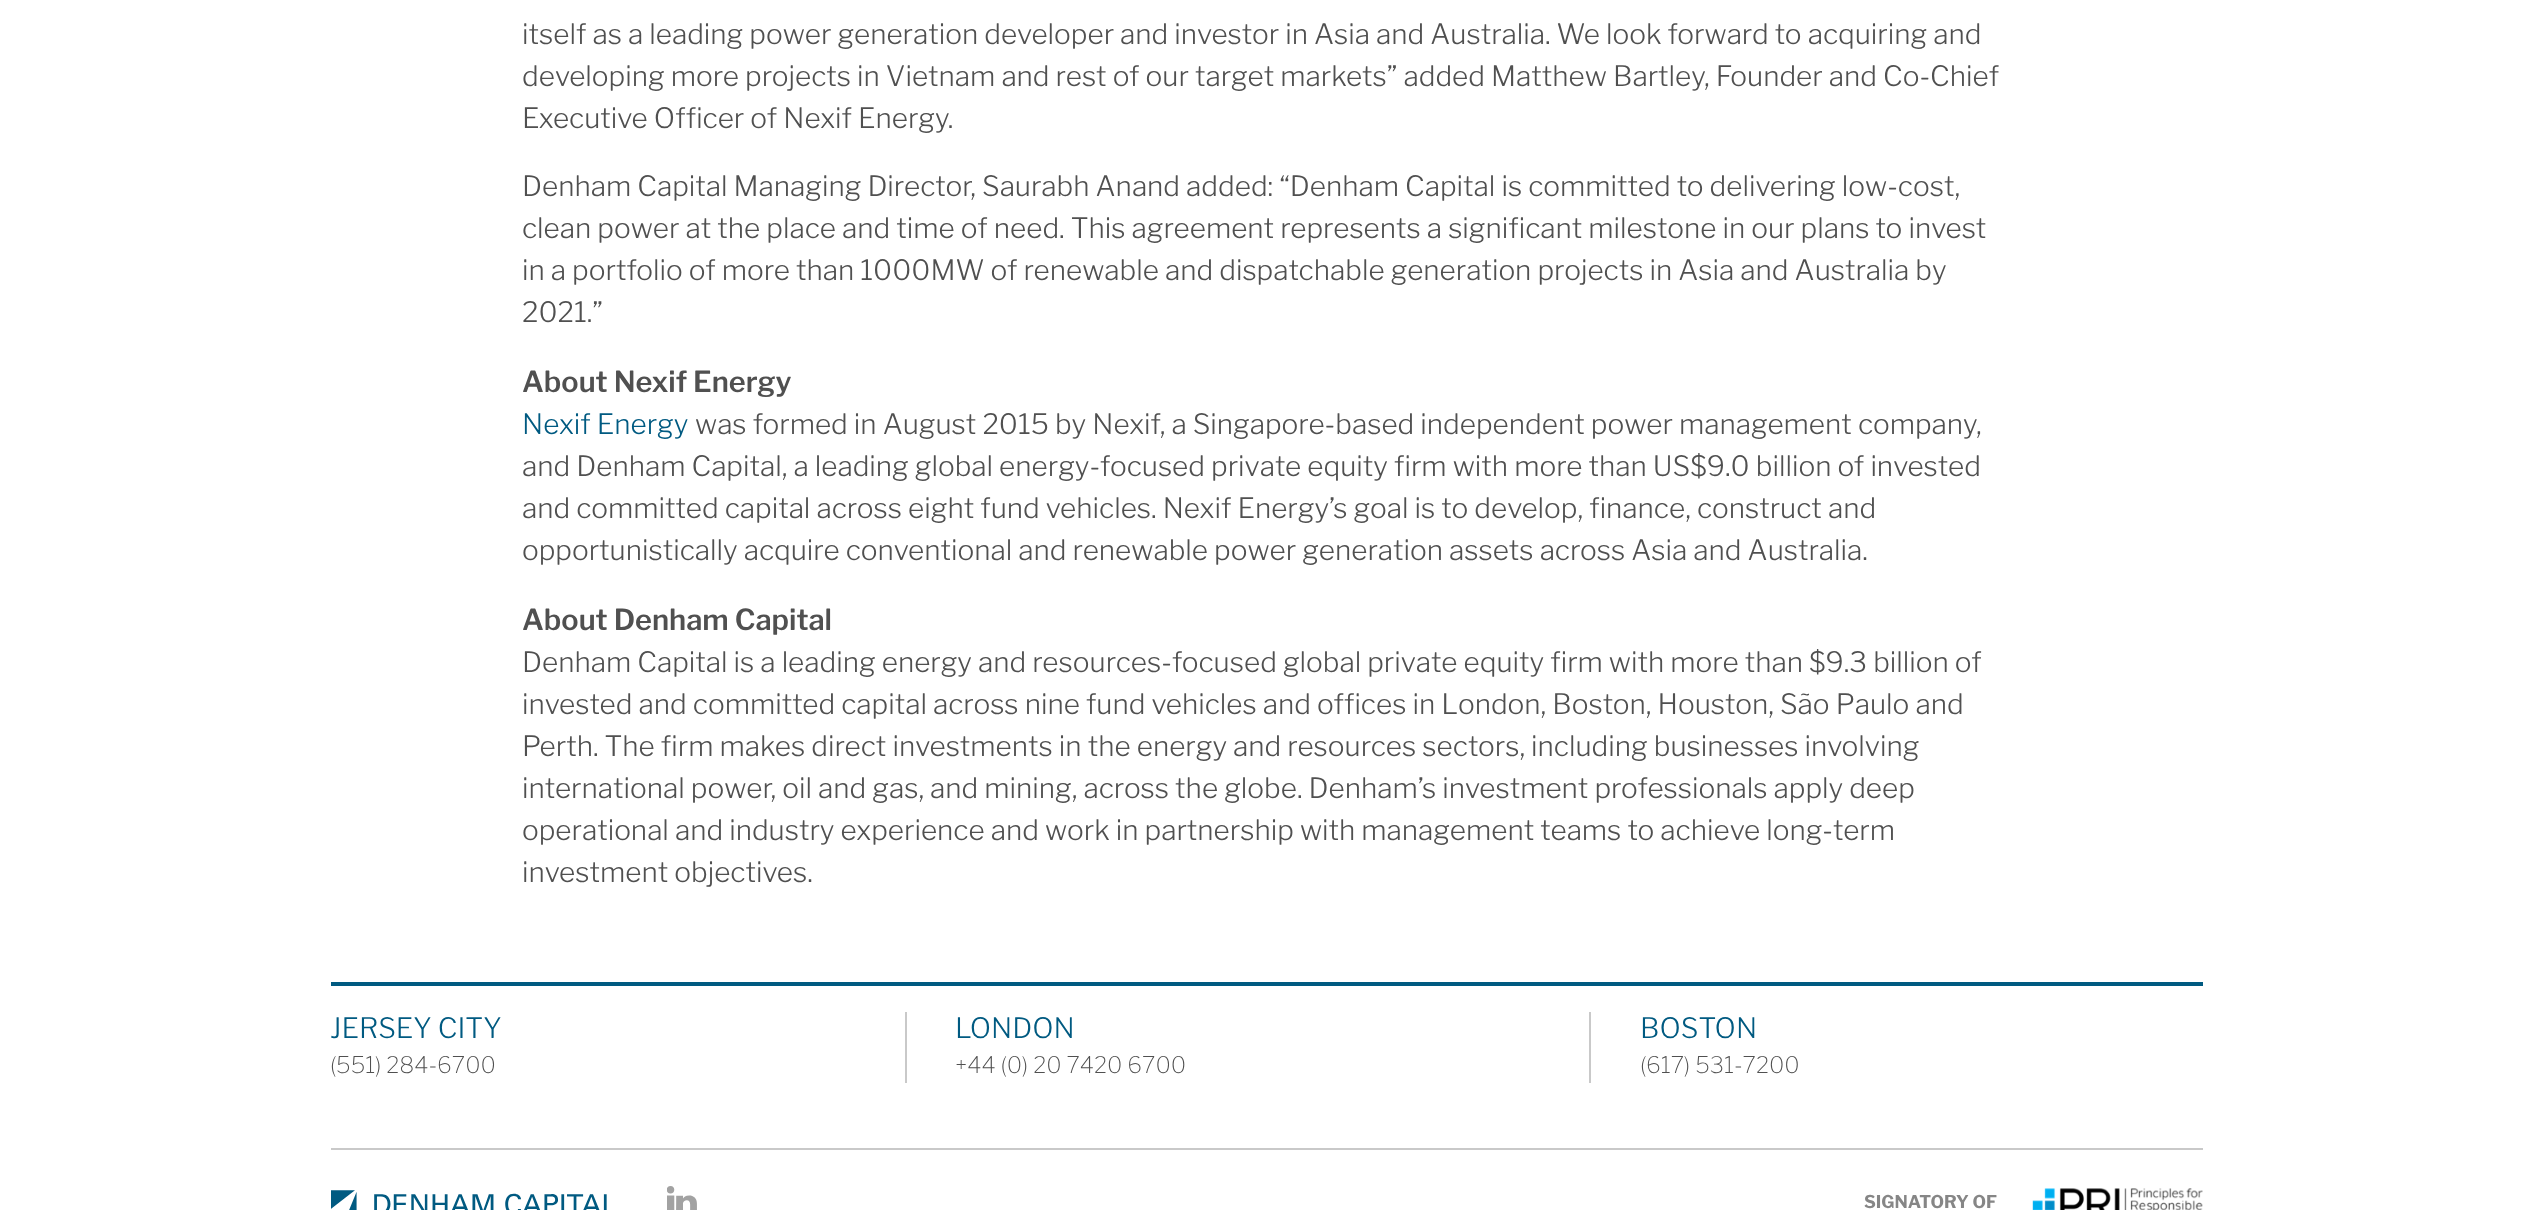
<svg xmlns="http://www.w3.org/2000/svg" width="2532" height="1210">
	<rect width="100%" height="100%" fill="#FFFFFF" />
	<g font-family="Libre Franklin" font-size="28" font-weight="300" fill="#505050">
		<text x="522" y="44">itself as a leading power generation developer and investor in Asia and Australia. We look forward to acquiring and</text>
		<text x="522" y="86">developing more projects in Vietnam and rest of our target markets” added Matthew Bartley, Founder and Co-Chief</text>
		<text x="522" y="128">Executive Officer of Nexif Energy.</text>
		<text x="522" y="196">Denham Capital Managing Director, Saurabh Anand added: “Denham Capital is committed to delivering low-cost,</text>
		<text x="522" y="238">clean power at the place and time of need. This agreement represents a significant milestone in our plans to invest</text>
		<text x="522" y="280">in a portfolio of more than 1000MW of renewable and dispatchable generation projects in Asia and Australia by</text>
		<text x="522" y="322">2021.”</text>
	</g>
	<text x="522" y="392" font-family="Libre Franklin" font-size="28.9" font-weight="600" fill="#505050">About Nexif Energy</text>
	<text x="522" y="434" font-family="Libre Franklin" font-size="28" font-weight="300" fill="#005A81">Nexif Energy</text>
	<g font-family="Libre Franklin" font-size="28" font-weight="300" fill="#505050">
		<text x="695" y="434">was formed in August 2015 by Nexif, a Singapore-based independent power management company,</text>
		<text x="522" y="476">and Denham Capital, a leading global energy-focused private equity firm with more than US$9.0 billion of invested</text>
		<text x="522" y="518">and committed capital across eight fund vehicles. Nexif Energy’s goal is to develop, finance, construct and</text>
		<text x="522" y="560">opportunistically acquire conventional and renewable power generation assets across Asia and Australia.</text>
	</g>
	<text x="522" y="630" font-family="Libre Franklin" font-size="28.9" font-weight="600" fill="#505050">About Denham Capital</text>
	<g font-family="Libre Franklin" font-size="28" font-weight="300" fill="#505050">
		<text x="522" y="672">Denham Capital is a leading energy and resources-focused global private equity firm with more than $9.3 billion of</text>
		<text x="522" y="714">invested and committed capital across nine fund vehicles and offices in London, Boston, Houston, São Paulo and</text>
		<text x="522" y="756">Perth. The firm makes direct investments in the energy and resources sectors, including businesses involving</text>
		<text x="522" y="798">international power, oil and gas, and mining, across the globe. Denham’s investment professionals apply deep</text>
		<text x="522" y="840">operational and industry experience and work in partnership with management teams to achieve long-term</text>
		<text x="522" y="882">investment objectives.</text>
	</g>
	<rect x="331" y="982" width="1872" height="4" fill="#005A81" />
	<text x="330" y="1038" font-family="Libre Franklin" font-size="28" font-weight="300" fill="#005A81">JERSEY CITY</text>
	<text x="330" y="1073" font-family="Libre Franklin" font-size="22.75" font-weight="100" fill="#505050">(551) 284-6700</text>
	<rect x="905" y="1012" width="2" height="71" fill="#C9C9C9" />
	<text x="955" y="1038" font-family="Libre Franklin" font-size="28" font-weight="300" fill="#005A81">LONDON</text>
	<text x="955" y="1073" font-family="Libre Franklin" font-size="22.75" font-weight="100" fill="#505050">+44 (0) 20 7420 6700</text>
	<rect x="1589" y="1012" width="2" height="71" fill="#C9C9C9" />
	<text x="1640" y="1038" font-family="Libre Franklin" font-size="28" font-weight="300" fill="#005A81">BOSTON</text>
	<text x="1640" y="1073" font-family="Libre Franklin" font-size="22.75" font-weight="100" fill="#505050">(617) 531-7200</text>
	<rect x="331" y="1148" width="1872" height="2" fill="#C9C9C9" />
	<image x="331" y="1190" width="276" height="20" href="assets/img1.png" />
	<image x="667" y="1186" width="30" height="24" href="assets/img2.png" />
	<text x="1864" y="1208" font-family="Libre Franklin" font-size="17.5" font-weight="700" fill="#868686">SIGNATORY OF</text>
	<image x="2032" y="1188" width="171" height="22" href="assets/img3.png" />
</svg>
